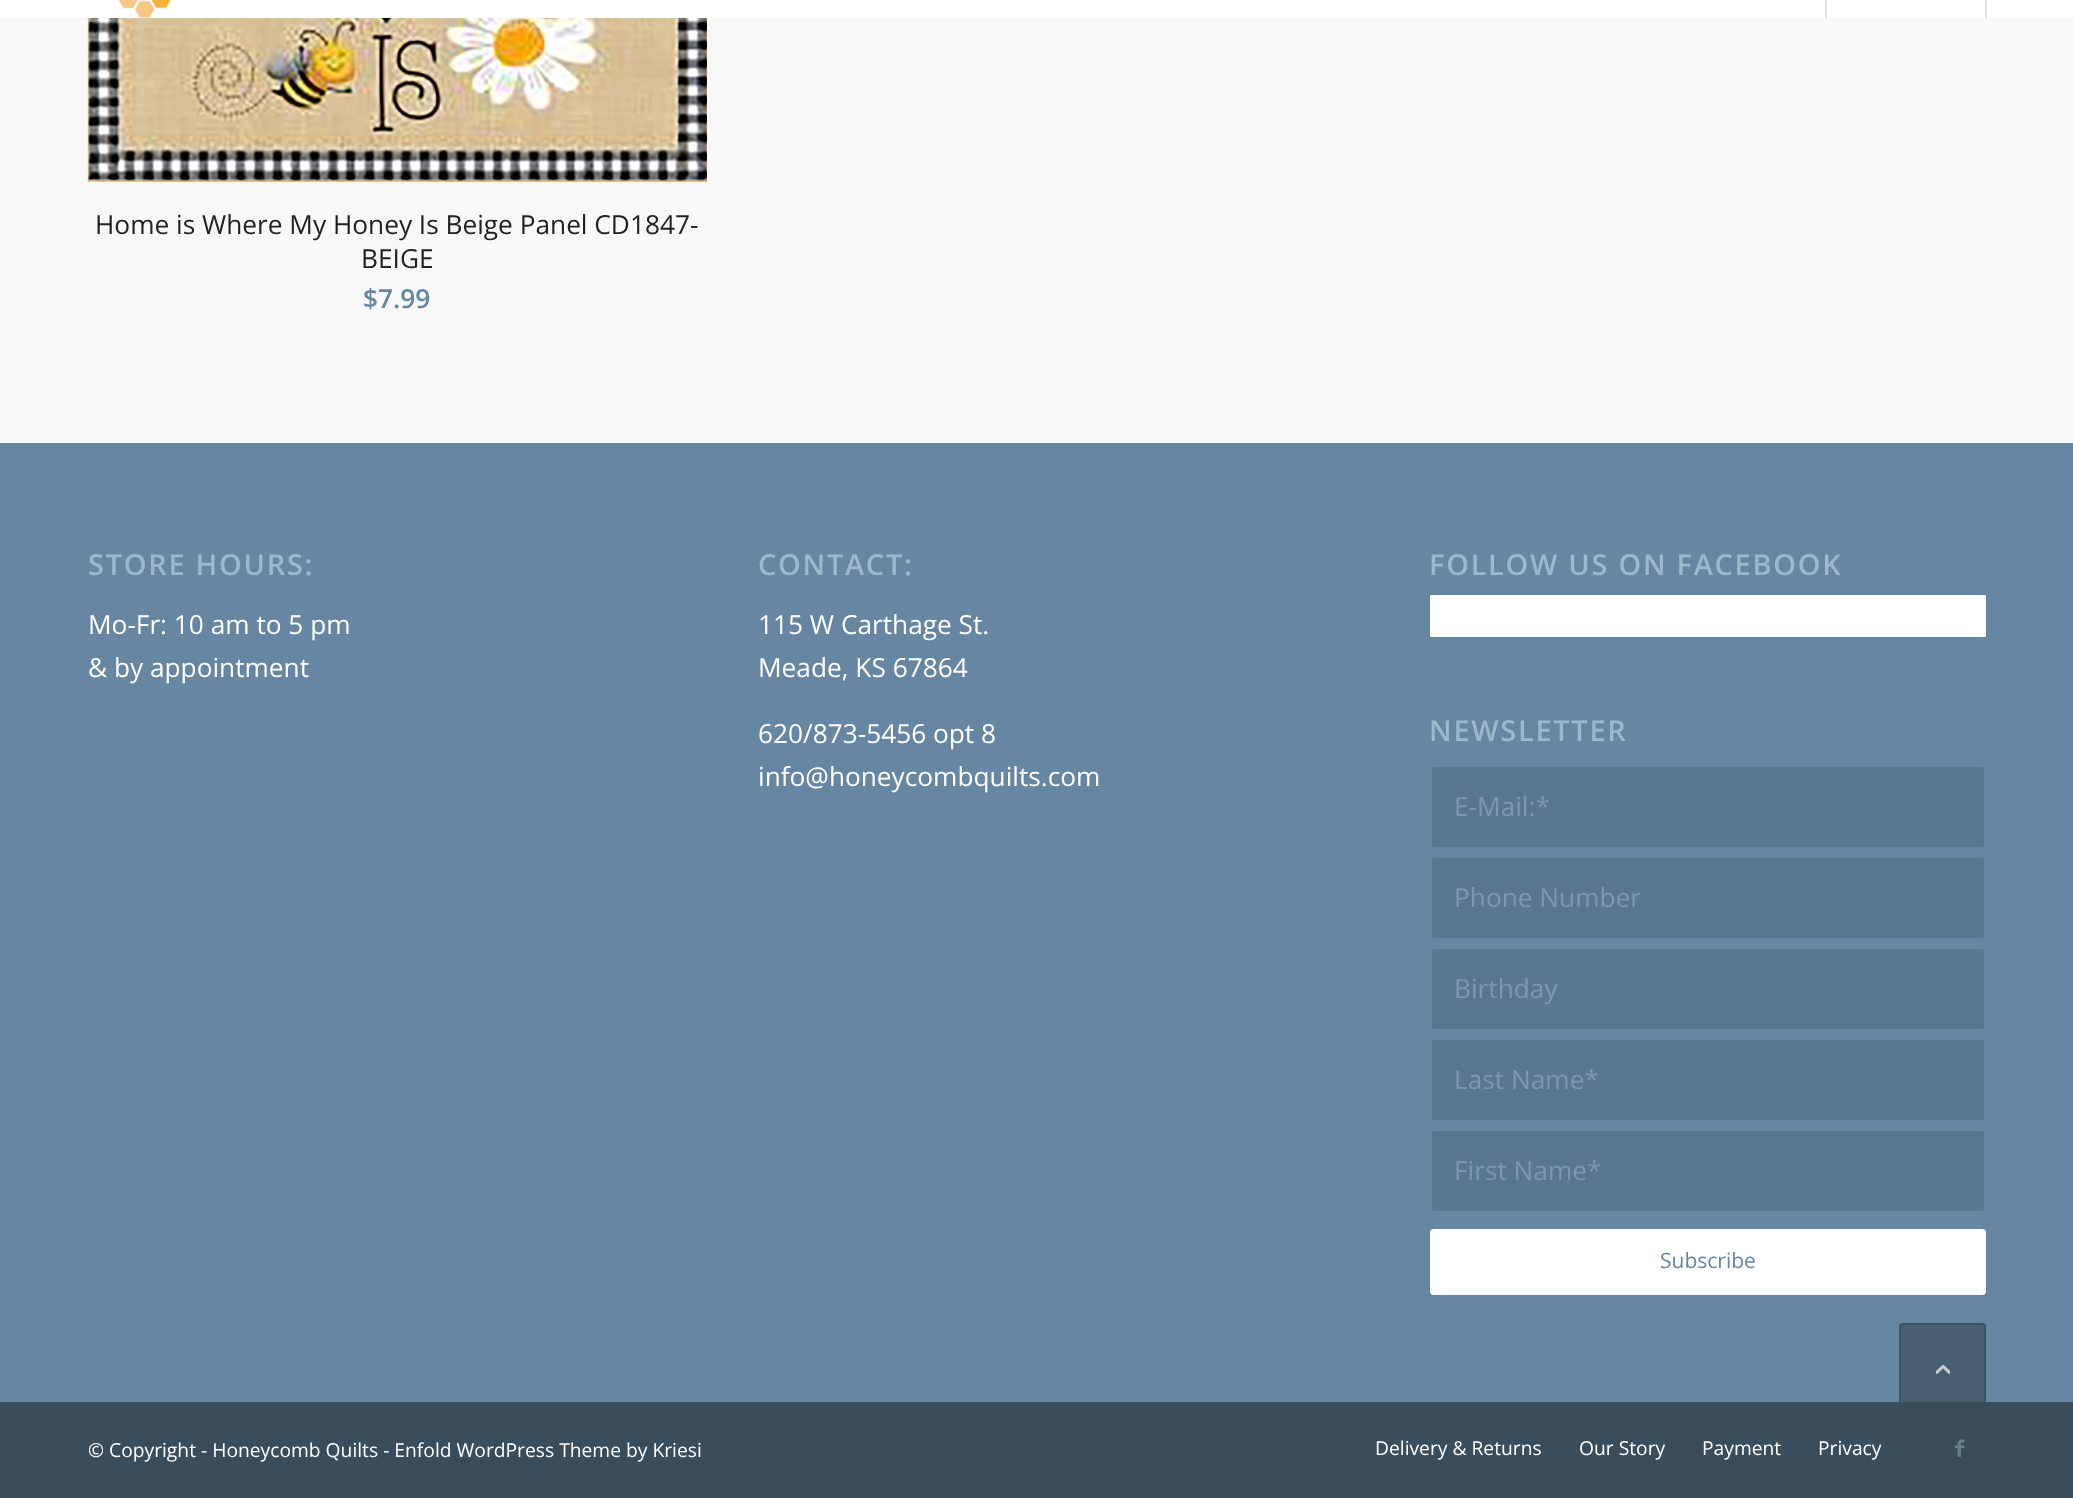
<svg xmlns="http://www.w3.org/2000/svg" width="2073" height="1498">
	<rect width="100%" height="100%" fill="#F8F8F8" />
	<rect x="0" y="0" width="2073" height="18" fill="#FFFFFF" />
	<image x="118" y="0" width="54" height="18" href="assets/img1.png" />
	<rect x="1985" y="0" width="2" height="18" fill="#E1E1E1" />
	<rect x="1825" y="0" width="2" height="18" fill="#E1E1E1" />
	<image x="87" y="18" width="620" height="165" href="assets/img2.png" />
	<g font-family="Open Sans" font-size="26.25" fill="#222222">
		<text x="95" y="234">Home is Where My Honey Is Beige Panel CD1847-</text>
		<text x="361" y="268">BEIGE</text>
	</g>
	<text x="363" y="308" font-family="Open Sans" font-size="26.25" font-weight="600" fill="#6786A1">$7.99</text>
	<rect x="0" y="443" width="2073" height="959" fill="#6786A1" />
	<text x="88" y="575" font-family="Open Sans" font-size="28.9" font-weight="600" letter-spacing="1.75" fill="#9DB8CC">STORE HOURS:</text>
	<g font-family="Open Sans" font-size="26.25" fill="#FFFFFF">
		<text x="88" y="634">Mo-Fr: 10 am to 5 pm</text>
		<text x="88" y="677">&amp; by appointment</text>
	</g>
	<text x="758" y="575" font-family="Open Sans" font-size="28.9" font-weight="600" letter-spacing="1.75" fill="#9DB8CC">CONTACT:</text>
	<g font-family="Open Sans" font-size="26.25" fill="#FFFFFF">
		<text x="758" y="634">115 W Carthage St.</text>
		<text x="758" y="677">Meade, KS 67864</text>
		<text x="758" y="743">620/873-5456 opt 8</text>
		<text x="758" y="786">info@honeycombquilts.com</text>
	</g>
	<text x="1429" y="575" font-family="Open Sans" font-size="28.9" font-weight="600" letter-spacing="1.75" fill="#9DB8CC">FOLLOW US ON FACEBOOK</text>
	<rect x="1430" y="595" width="556" height="42" fill="#FFFFFF" />
	<text x="1429" y="741" font-family="Open Sans" font-size="28.9" font-weight="600" letter-spacing="1.75" fill="#9DB8CC">NEWSLETTER</text>
	<rect x="1431" y="766" width="554" height="82" rx="3" fill="#59778F" stroke="#6786A1" stroke-width="2" />
	<text x="1454" y="816" font-family="Open Sans" font-size="26.25" fill="#7B98AE">E-Mail:*</text>
	<rect x="1431" y="857" width="554" height="82" rx="3" fill="#59778F" stroke="#6786A1" stroke-width="2" />
	<text x="1454" y="907" font-family="Open Sans" font-size="26.25" fill="#7B98AE">Phone Number</text>
	<rect x="1431" y="948" width="554" height="82" rx="3" fill="#59778F" stroke="#6786A1" stroke-width="2" />
	<text x="1454" y="998" font-family="Open Sans" font-size="26.25" fill="#7B98AE">Birthday</text>
	<rect x="1431" y="1039" width="554" height="82" rx="3" fill="#59778F" stroke="#6786A1" stroke-width="2" />
	<text x="1454" y="1089" font-family="Open Sans" font-size="26.25" fill="#7B98AE">Last Name*</text>
	<rect x="1431" y="1130" width="554" height="82" rx="3" fill="#59778F" stroke="#6786A1" stroke-width="2" />
	<text x="1454" y="1180" font-family="Open Sans" font-size="26.25" fill="#7B98AE">First Name*</text>
	<rect x="1430" y="1229" width="556" height="66" rx="4" fill="#FFFFFF" />
	<text x="1660" y="1268" font-family="Open Sans" font-size="21" fill="#6786A1">Subscribe</text>
	<rect x="0" y="1402" width="2073" height="96" fill="#3A4D5C" />
	<g font-family="Open Sans" font-size="19.25" fill="#FFFFFF">
		<text x="88" y="1457">© Copyright - Honeycomb Quilts - Enfold WordPress Theme by Kriesi</text>
		<text x="1375" y="1455">Delivery &amp; Returns</text>
		<text x="1579" y="1455">Our Story</text>
		<text x="1702" y="1455">Payment</text>
		<text x="1818" y="1455">Privacy</text>
	</g>
	<image x="1955" y="1439" width="10" height="18" href="assets/img3.png" />
	<rect x="1899" y="1323" width="87" height="88" rx="4" fill="#3A4D5C" fill-opacity="0.7" />
	<rect x="1900" y="1324" width="85" height="86" rx="3" fill="none" stroke="#3A4D5C" stroke-opacity="0.7" stroke-width="2" />
	<image x="1936" y="1365" width="14" height="9" href="assets/img4.png" />
</svg>
